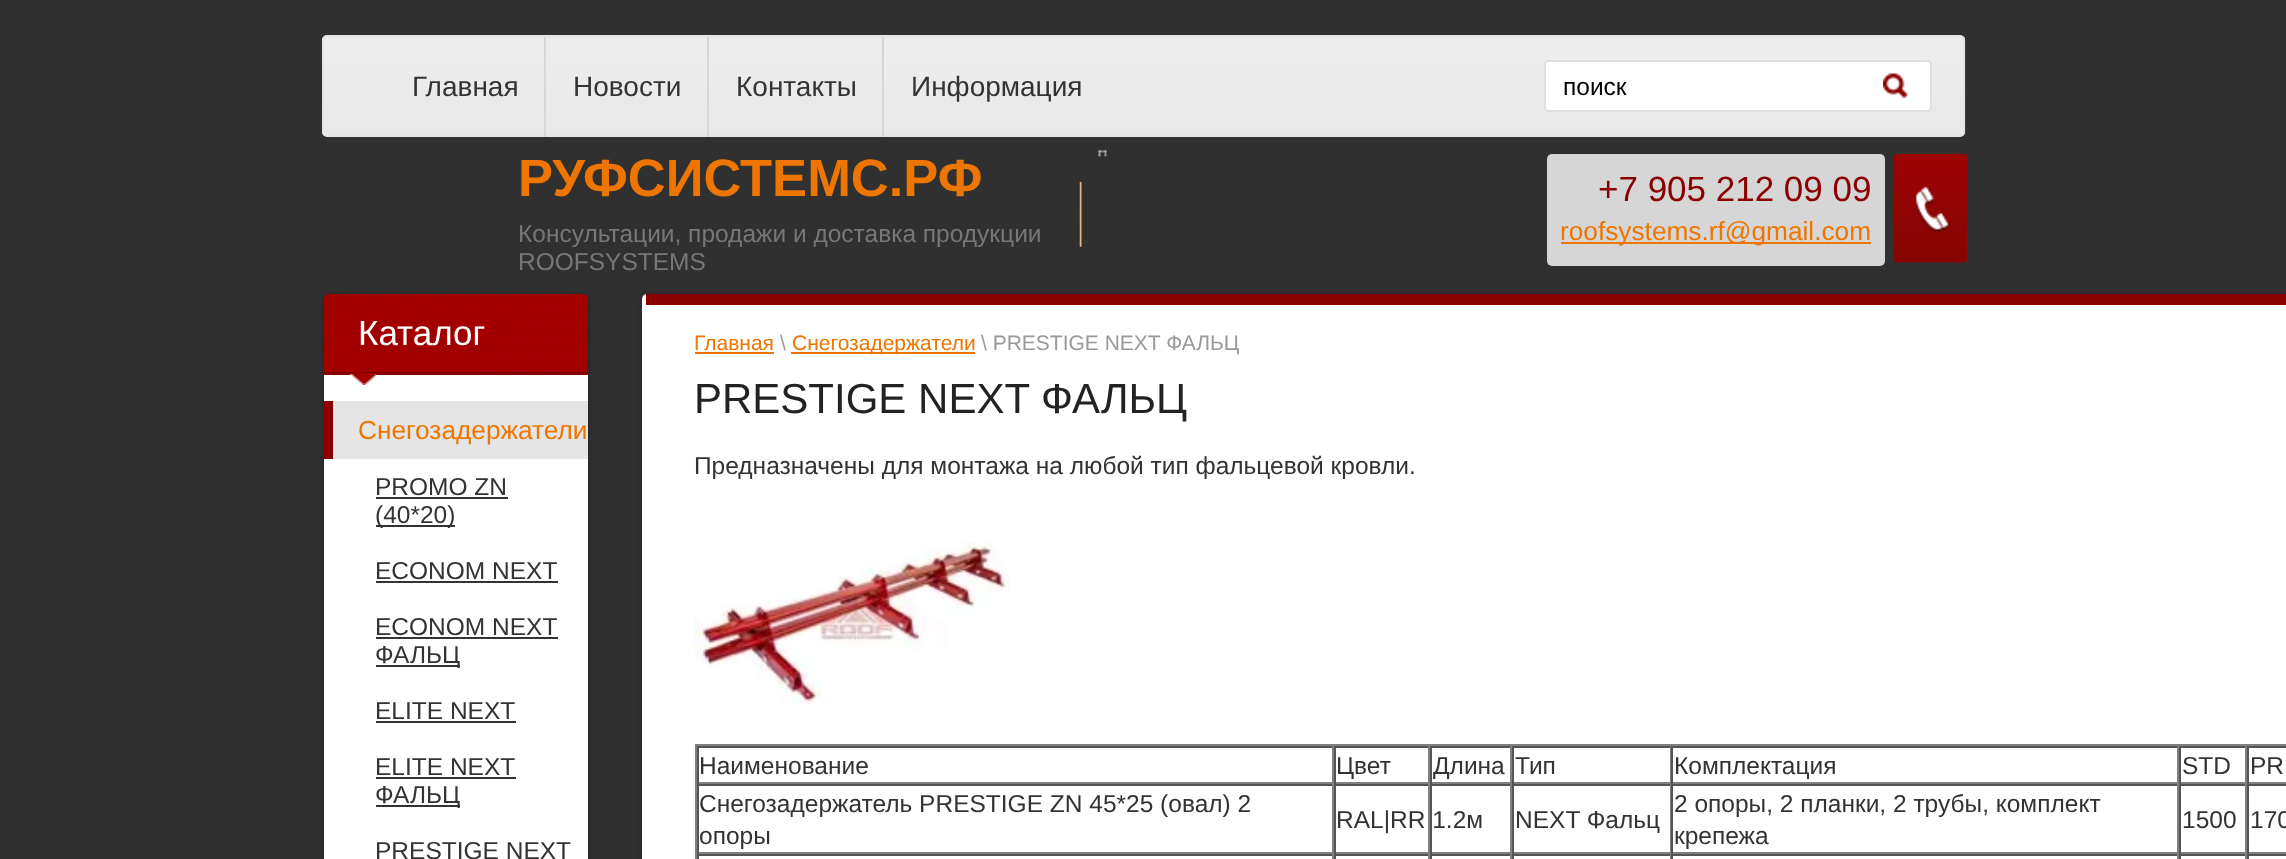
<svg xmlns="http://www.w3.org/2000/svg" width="2286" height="859">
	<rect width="100%" height="100%" fill="#FFFFFF" />
	<image x="0" y="0" width="2286" height="859" href="assets/img1.png" />
	<image x="322" y="36" width="1644" height="101" href="assets/img2.png" />
	<rect x="323" y="36" width="1641" height="100" rx="4" fill="none" stroke="#E5E5E5" stroke-width="2" />
	<text x="412" y="96" font-family="Liberation Sans" font-size="28" fill="#333333">Главная</text>
	<rect x="544" y="37" width="2" height="100" fill="#D6D6D6" />
	<text x="573" y="96" font-family="Liberation Sans" font-size="28" fill="#333333">Новости</text>
	<rect x="707" y="37" width="2" height="100" fill="#D6D6D6" />
	<text x="736" y="96" font-family="Liberation Sans" font-size="28" fill="#333333">Контакты</text>
	<rect x="882" y="37" width="2" height="100" fill="#D6D6D6" />
	<text x="911" y="96" font-family="Liberation Sans" font-size="28" fill="#333333">Информация</text>
	<rect x="1545" y="61" width="386" height="50" rx="4" fill="#FFFFFF" stroke="#DFDFDF" stroke-width="2" />
	<text x="1563" y="95" font-family="Liberation Sans" font-size="24.5" fill="#000000">поиск</text>
	<image x="1883" y="73" width="25" height="25" href="assets/img3.png" />
	<image x="1079" y="182" width="3" height="65" href="assets/img4.png" />
	<text x="518" y="196" font-family="Liberation Sans" font-size="52.5" font-weight="700" fill="#EE7600">РУФСИСТЕМС.РФ</text>
	<g font-family="Liberation Sans" font-size="24.5" fill="#777777">
		<text x="518" y="242">Консультации, продажи и доставка продукции</text>
		<text x="518" y="270">ROOFSYSTEMS</text>
	</g>
	<image x="1893" y="154" width="74" height="109" href="assets/img5.png" />
	<rect x="1547" y="154" width="338" height="112" rx="5" fill="#D6D6D6" />
	<text x="1598" y="201" font-family="Liberation Sans" font-size="35" fill="#8B0000">+7 905 212 09 09</text>
	<rect x="1561" y="242" width="310" height="2" fill="#EE7600" />
	<text x="1560" y="240" font-family="Liberation Sans" font-size="26.25" fill="#EE7600">roofsystems.rf@gmail.com</text>
	<rect x="327" y="298" width="258" height="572" fill="#000000" filter="blur(3.5px)" />
	<image x="323" y="294" width="265" height="79" href="assets/img6.png" />
	<rect x="324" y="373" width="264" height="2" fill="#860000" />
	<text x="358" y="345" font-family="Liberation Sans" font-size="35" fill="#FFFFFF">Каталог</text>
	<rect x="324" y="375" width="264" height="484" fill="#FFFFFF" />
	<image x="350" y="372" width="27" height="13" href="assets/img7.png" />
	<rect x="324" y="401" width="9" height="58" fill="#8B0000" />
	<rect x="333" y="401" width="255" height="58" fill="#E5E5E5" />
	<text x="358" y="439" font-family="Liberation Sans" font-size="26.25" fill="#EE7600">Снегозадержатели</text>
	<text x="375" y="495" font-family="Liberation Sans" font-size="24.5" fill="#333333">PROMO ZN</text>
	<rect x="376" y="497" width="132" height="2" fill="#333333" />
	<rect x="376" y="525" width="79" height="2" fill="#333333" />
	<g font-family="Liberation Sans" font-size="24.5" fill="#333333">
		<text x="375" y="523">(40*20)</text>
		<text x="375" y="579">ECONOM NEXT</text>
	</g>
	<rect x="376" y="581" width="182" height="2" fill="#333333" />
	<text x="375" y="635" font-family="Liberation Sans" font-size="24.5" fill="#333333">ECONOM NEXT</text>
	<rect x="376" y="637" width="182" height="2" fill="#333333" />
	<rect x="376" y="665" width="84" height="2" fill="#333333" />
	<g font-family="Liberation Sans" font-size="24.5" fill="#333333">
		<text x="375" y="663">ФАЛЬЦ</text>
		<text x="375" y="719">ELITE NEXT</text>
	</g>
	<rect x="376" y="721" width="140" height="2" fill="#333333" />
	<text x="375" y="775" font-family="Liberation Sans" font-size="24.5" fill="#333333">ELITE NEXT</text>
	<rect x="376" y="777" width="140" height="2" fill="#333333" />
	<rect x="376" y="805" width="84" height="2" fill="#333333" />
	<g font-family="Liberation Sans" font-size="24.5" fill="#333333">
		<text x="375" y="803">ФАЛЬЦ</text>
		<text x="375" y="859">PRESTIGE NEXT</text>
	</g>
	<rect x="646" y="298" width="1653" height="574" rx="2" fill="#000000" filter="blur(3.5px)" />
	<rect x="642" y="294" width="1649" height="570" rx="5" fill="#FFFFFF" />
	<rect x="646" y="294" width="1640" height="11" fill="#8B0000" />
	<text x="694" y="350" font-family="Liberation Sans" font-size="21" fill="#EE7600">Главная</text>
	<rect x="695" y="352" width="79" height="2" fill="#EE7600" />
	<text x="780" y="350" font-family="Liberation Sans" font-size="21" fill="#999999">\</text>
	<rect x="791" y="352" width="184" height="2" fill="#EE7600" />
	<text x="792" y="350" font-family="Liberation Sans" font-size="21" fill="#EE7600">Снегозадержатели</text>
	<text x="981" y="350" font-family="Liberation Sans" font-size="21" fill="#999999">\ PRESTIGE NEXT ФАЛЬЦ</text>
	<text x="694" y="413" font-family="Liberation Sans" font-size="42" fill="#222222">PRESTIGE NEXT ФАЛЬЦ</text>
	<text x="694" y="474" font-family="Liberation Sans" font-size="24.5" fill="#333333">Предназначены для монтажа на любой тип фальцевой кровли.</text>
	<image x="694" y="542" width="316" height="162" href="assets/img8.png" />
	<rect x="695" y="744" width="1591" height="2" fill="#808080" />
	<rect x="695" y="744" width="2" height="115" fill="#808080" />
	<rect x="697" y="746" width="1589" height="2" fill="#555555" />
	<rect x="1332" y="746" width="2" height="38" fill="#808080" />
	<rect x="697" y="782" width="637" height="2" fill="#808080" />
	<rect x="697" y="746" width="2" height="38" fill="#555555" />
	<text x="699" y="774" font-family="Liberation Sans" font-size="24.5" fill="#333333">Наименование</text>
	<rect x="1428" y="746" width="2" height="38" fill="#808080" />
	<rect x="1334" y="782" width="96" height="2" fill="#808080" />
	<rect x="1334" y="746" width="2" height="38" fill="#555555" />
	<text x="1336" y="774" font-family="Liberation Sans" font-size="24.5" fill="#333333">Цвет</text>
	<rect x="1510" y="746" width="2" height="38" fill="#808080" />
	<rect x="1430" y="782" width="82" height="2" fill="#808080" />
	<rect x="1430" y="746" width="2" height="38" fill="#555555" />
	<text x="1433" y="774" font-family="Liberation Sans" font-size="24.5" fill="#333333">Длина</text>
	<rect x="1670" y="746" width="1" height="38" fill="#808080" />
	<rect x="1512" y="782" width="159" height="2" fill="#808080" />
	<rect x="1512" y="746" width="2" height="38" fill="#555555" />
	<text x="1515" y="774" font-family="Liberation Sans" font-size="24.5" fill="#333333">Тип</text>
	<rect x="2177" y="746" width="2" height="38" fill="#808080" />
	<rect x="1671" y="782" width="508" height="2" fill="#808080" />
	<rect x="1671" y="746" width="2" height="38" fill="#555555" />
	<text x="1674" y="774" font-family="Liberation Sans" font-size="24.5" fill="#333333">Комплектация</text>
	<rect x="2245" y="746" width="2" height="38" fill="#808080" />
	<rect x="2179" y="782" width="107" height="2" fill="#808080" />
	<rect x="2179" y="746" width="2" height="38" fill="#555555" />
	<text x="2182" y="774" font-family="Liberation Sans" font-size="24.5" fill="#333333">STD</text>
	<rect x="2247" y="746" width="2" height="38" fill="#555555" />
	<text x="2250" y="774" font-family="Liberation Sans" font-size="24.5" fill="#333333">PR</text>
	<rect x="697" y="784" width="1589" height="2" fill="#555555" />
	<rect x="1332" y="784" width="2" height="70" fill="#808080" />
	<rect x="697" y="852" width="637" height="2" fill="#808080" />
	<rect x="697" y="784" width="2" height="70" fill="#555555" />
	<g font-family="Liberation Sans" font-size="24.5" fill="#333333">
		<text x="699" y="812">Снегозадержатель PRESTIGE ZN 45*25 (овал) 2</text>
		<text x="699" y="844">опоры</text>
	</g>
	<rect x="1510" y="784" width="2" height="70" fill="#808080" />
	<rect x="1430" y="852" width="82" height="2" fill="#808080" />
	<rect x="1430" y="784" width="2" height="70" fill="#555555" />
	<rect x="2177" y="784" width="2" height="70" fill="#808080" />
	<rect x="1671" y="852" width="508" height="2" fill="#808080" />
	<rect x="1671" y="784" width="2" height="70" fill="#555555" />
	<g font-family="Liberation Sans" font-size="24.5" fill="#333333">
		<text x="1674" y="812">2 опоры, 2 планки, 2 трубы, комплект</text>
		<text x="1674" y="844">крепежа</text>
	</g>
	<rect x="1428" y="784" width="2" height="70" fill="#808080" />
	<rect x="1334" y="852" width="96" height="2" fill="#808080" />
	<rect x="1334" y="784" width="2" height="70" fill="#555555" />
	<text x="1336" y="828" font-family="Liberation Sans" font-size="24.5" fill="#333333">RAL|RR 1.2м</text>
	<rect x="1670" y="784" width="1" height="70" fill="#808080" />
	<rect x="1512" y="852" width="159" height="2" fill="#808080" />
	<rect x="1512" y="784" width="2" height="70" fill="#555555" />
	<text x="1515" y="828" font-family="Liberation Sans" font-size="24.5" fill="#333333">NEXT Фальц</text>
	<rect x="2245" y="784" width="2" height="70" fill="#808080" />
	<rect x="2179" y="852" width="107" height="2" fill="#808080" />
	<rect x="2179" y="784" width="2" height="70" fill="#555555" />
	<text x="2182" y="828" font-family="Liberation Sans" font-size="24.5" fill="#333333">1500</text>
	<rect x="2247" y="784" width="2" height="70" fill="#555555" />
	<text x="2250" y="828" font-family="Liberation Sans" font-size="24.5" fill="#333333">170</text>
	<rect x="697" y="854" width="1589" height="2" fill="#555555" />
	<rect x="1332" y="854" width="2" height="5" fill="#808080" />
	<rect x="697" y="854" width="2" height="5" fill="#555555" />
	<rect x="1428" y="854" width="2" height="5" fill="#808080" />
	<rect x="1334" y="854" width="2" height="5" fill="#555555" />
	<rect x="1510" y="854" width="2" height="5" fill="#808080" />
	<rect x="1430" y="854" width="2" height="5" fill="#555555" />
	<rect x="1670" y="854" width="1" height="5" fill="#808080" />
	<rect x="1512" y="854" width="2" height="5" fill="#555555" />
	<rect x="2177" y="854" width="2" height="5" fill="#808080" />
	<rect x="1671" y="854" width="2" height="5" fill="#555555" />
	<rect x="2245" y="854" width="2" height="5" fill="#808080" />
	<rect x="2179" y="854" width="2" height="5" fill="#555555" />
	<rect x="2247" y="854" width="2" height="5" fill="#555555" />
</svg>
